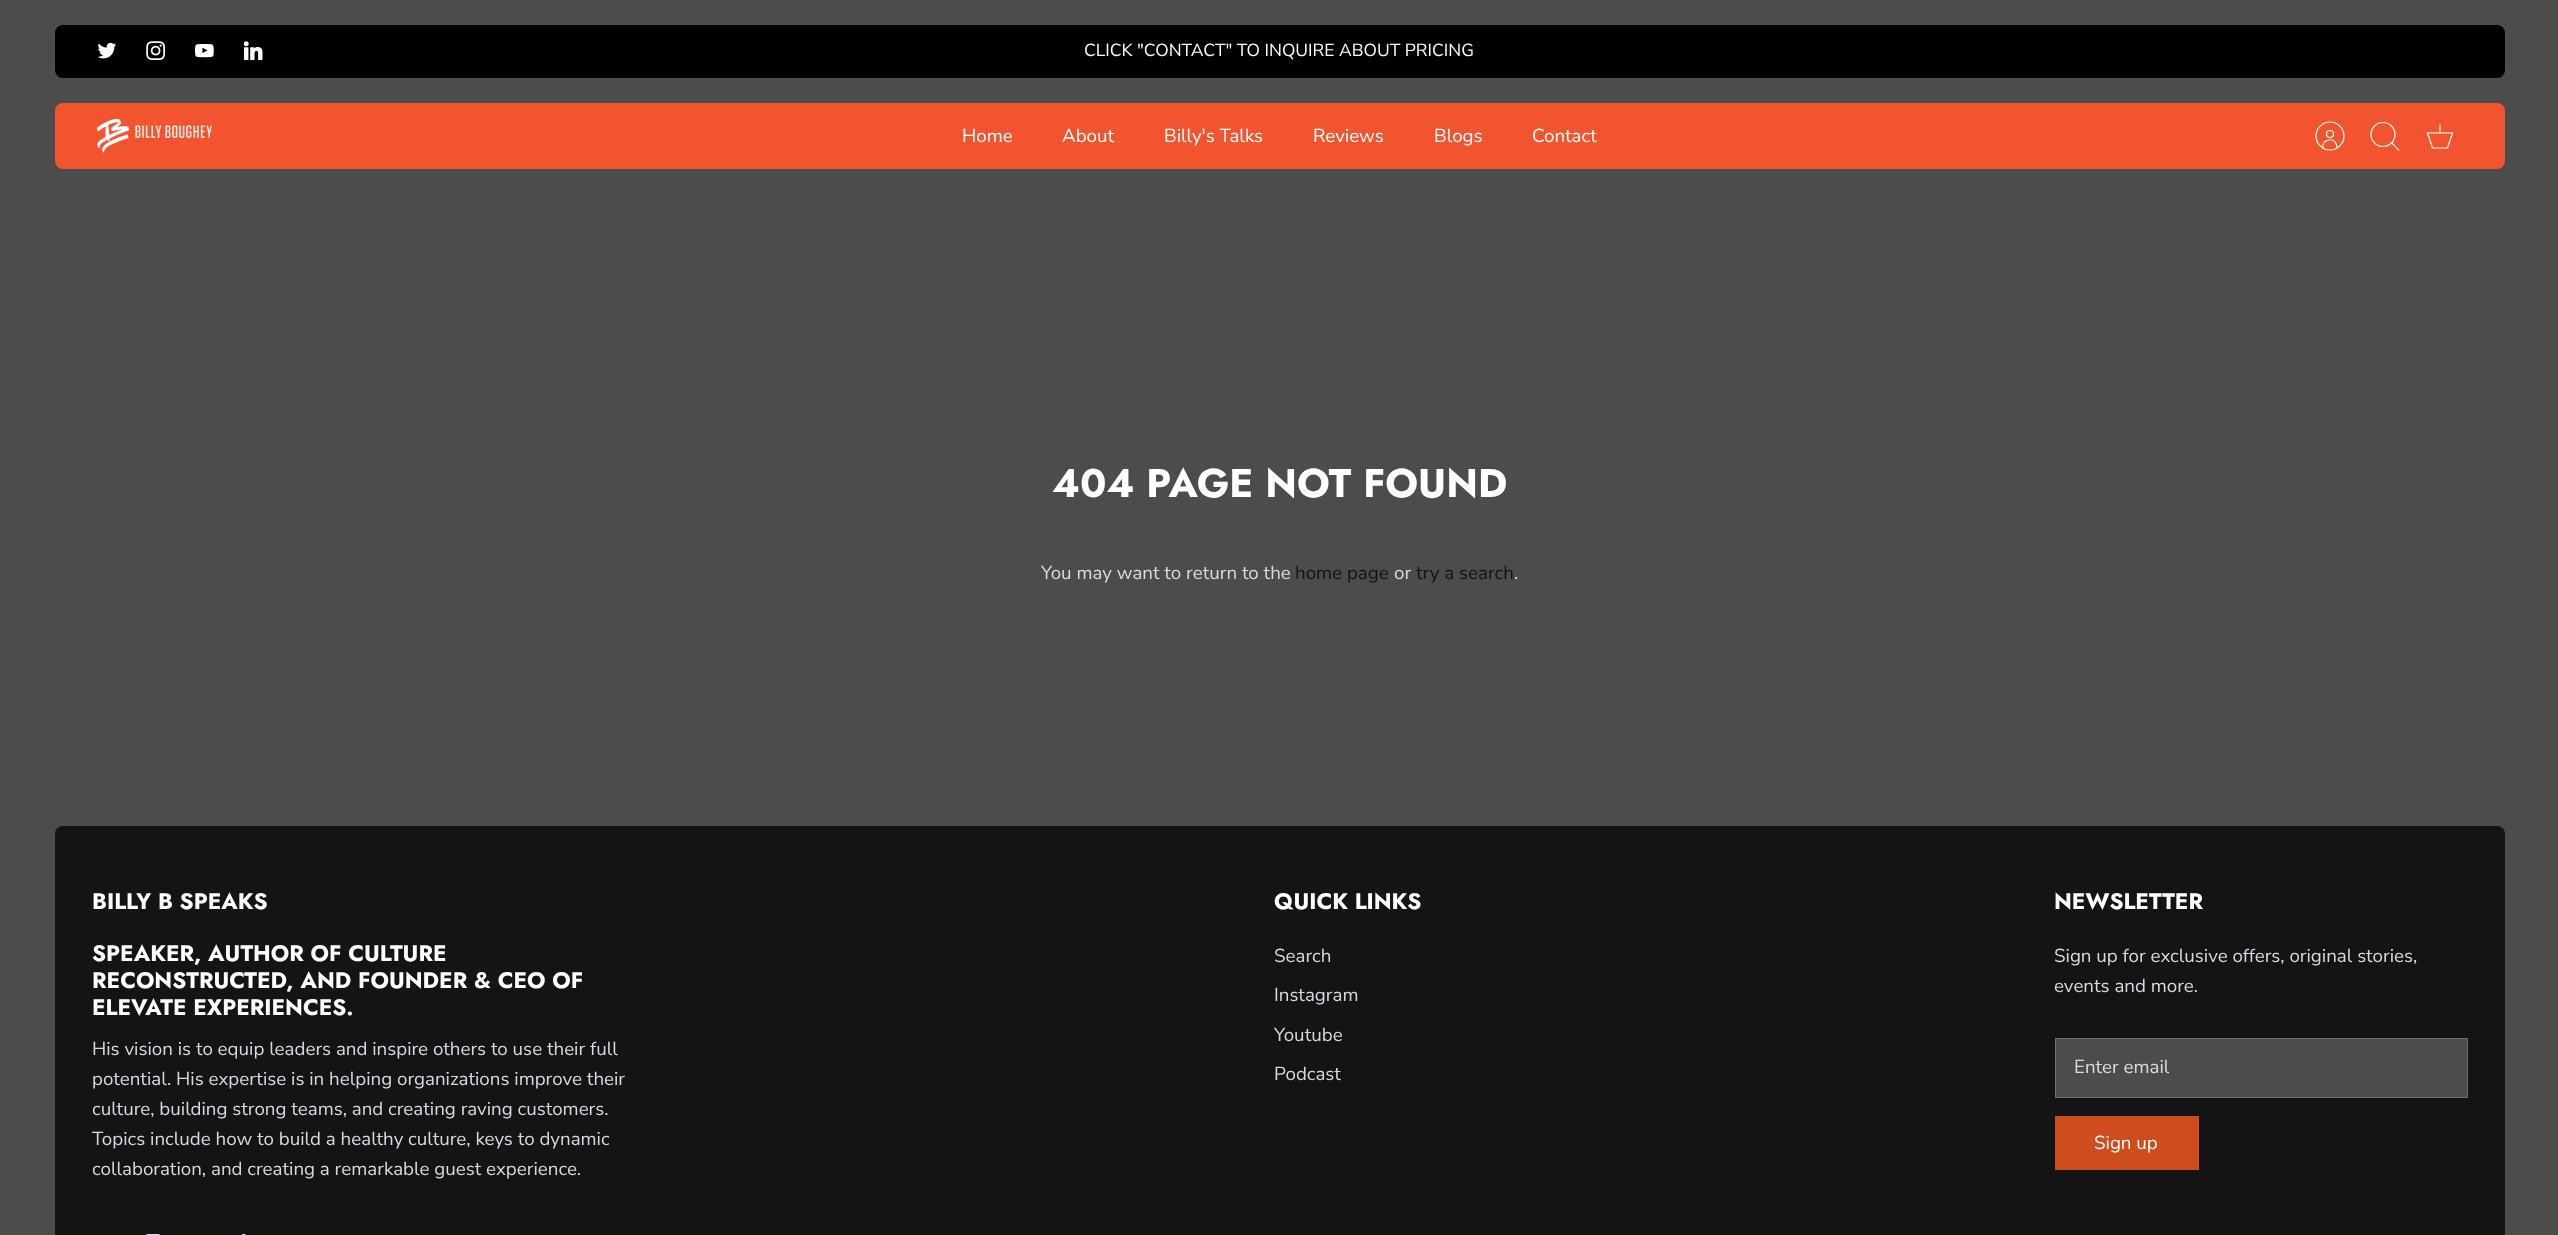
<svg xmlns="http://www.w3.org/2000/svg" width="2558" height="1235">
	<rect width="100%" height="100%" fill="#4C4C4B" />
	<rect x="55" y="25" width="2450" height="53" rx="8" fill="#000000" />
	<image x="98" y="42" width="18" height="17" href="assets/img1.png" />
	<image x="146" y="41" width="19" height="19" href="assets/img2.png" />
	<image x="195" y="44" width="19" height="14" href="assets/img3.png" />
	<image x="244" y="41" width="19" height="19" href="assets/img4.png" />
	<text x="1084" y="56" font-family="Nunito Sans" font-size="17.5" fill="#FFFFFF">CLICK "CONTACT" TO INQUIRE ABOUT PRICING</text>
	<rect x="55" y="103" width="2450" height="66" rx="8" fill="#F2542F" />
	<image x="97" y="118" width="115" height="35" href="assets/img5.png" />
	<g font-family="Nunito Sans" font-size="18.75" fill="#FFFFFF">
		<text x="962" y="142">Home</text>
		<text x="1062" y="142">About</text>
		<text x="1164" y="142">Billy's Talks</text>
		<text x="1313" y="142">Reviews</text>
		<text x="1434" y="142">Blogs</text>
		<text x="1532" y="142">Contact</text>
	</g>
	<path d="M2336.5 148.5C2337 147 2337 145 2336 143.5C2332 136.5 2321 140.5 2323 148.5" fill="none" stroke="#FFFFFF" stroke-width="1.2" />
	<circle cx="2330" cy="134" r="3.5" fill="none" stroke="#FFFFFF" stroke-width="1.2" />
	<circle cx="2330" cy="136" r="14" fill="none" stroke="#FFFFFF" stroke-width="1.2" />
	<circle cx="2383" cy="134.5" r="12" fill="none" stroke="#FFFFFF" stroke-width="1.2" />
	<path d="M2392 143L2398.5 150" fill="none" stroke="#FFFFFF" stroke-width="1.2" stroke-linecap="square" />
	<path d="M2427.5 133H2452.5L2447.5 148H2432.5Z" fill="none" stroke="#FFFFFF" stroke-width="1.2" />
	<path d="M2440 132.5V125" fill="none" stroke="#FFFFFF" stroke-width="1.2" stroke-linecap="square" />
	<text x="1052" y="497" font-family="Jost" font-size="40" font-weight="700" fill="#FFFFFF">404 PAGE NOT FOUND</text>
	<text x="1041" y="579" font-family="Nunito Sans" font-size="18.75" fill="#DBDBDB">You may want to return to the</text>
	<text x="1295" y="579" font-family="Nunito Sans" font-size="18.75" fill="#121212">home page</text>
	<text x="1394" y="579" font-family="Nunito Sans" font-size="18.75" fill="#DBDBDB">or</text>
	<text x="1416" y="579" font-family="Nunito Sans" font-size="18.75" fill="#121212">try a search</text>
	<text x="1514" y="579" font-family="Nunito Sans" font-size="18.75" fill="#DBDBDB">.</text>
	<rect x="55" y="826" width="2450" height="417" rx="8" fill="#141414" />
	<g font-family="Jost" font-size="22.5" font-weight="700" fill="#FFFFFF">
		<text x="92" y="909">BILLY B SPEAKS</text>
		<text x="92" y="961">SPEAKER, AUTHOR OF CULTURE</text>
		<text x="92" y="988">RECONSTRUCTED, AND FOUNDER &amp; CEO OF</text>
		<text x="92" y="1015">ELEVATE EXPERIENCES.</text>
	</g>
	<g font-family="Nunito Sans" font-size="18.75" fill="#D2DBE5">
		<text x="92" y="1055">His vision is to equip leaders and inspire others to use their full</text>
		<text x="92" y="1085">potential. His expertise is in helping organizations improve their</text>
		<text x="92" y="1115">culture, building strong teams, and creating raving customers.</text>
		<text x="92" y="1145">Topics include how to build a healthy culture, keys to dynamic</text>
		<text x="92" y="1175">collaboration, and creating a remarkable guest experience.</text>
	</g>
	<image x="145" y="1234" width="16" height="1" href="assets/img6.png" />
	<image x="241" y="1234" width="5" height="1" href="assets/img7.png" />
	<text x="1274" y="909" font-family="Jost" font-size="22.5" font-weight="700" fill="#FFFFFF">QUICK LINKS</text>
	<g font-family="Nunito Sans" font-size="18.75" fill="#D2DBE5">
		<text x="1274" y="962">Search</text>
		<text x="1274" y="1001">Instagram</text>
		<text x="1274" y="1041">Youtube</text>
		<text x="1274" y="1080">Podcast</text>
	</g>
	<text x="2054" y="909" font-family="Jost" font-size="22.5" font-weight="700" fill="#FFFFFF">NEWSLETTER</text>
	<g font-family="Nunito Sans" font-size="18.75" fill="#D2DBE5">
		<text x="2054" y="962">Sign up for exclusive offers, original stories,</text>
		<text x="2054" y="992">events and more.</text>
	</g>
	<rect x="2055.5" y="1038.5" width="412" height="59" fill="#4C4C4B" stroke="#70706F" />
	<text x="2074" y="1073" font-family="Nunito Sans" font-size="18.75" fill="#DBDBDB">Enter email</text>
	<rect x="2055" y="1116" width="144" height="54" fill="#CD4D1E" />
	<text x="2094" y="1149" font-family="Nunito Sans" font-size="18.75" fill="#FFFFFF">Sign up</text>
</svg>
